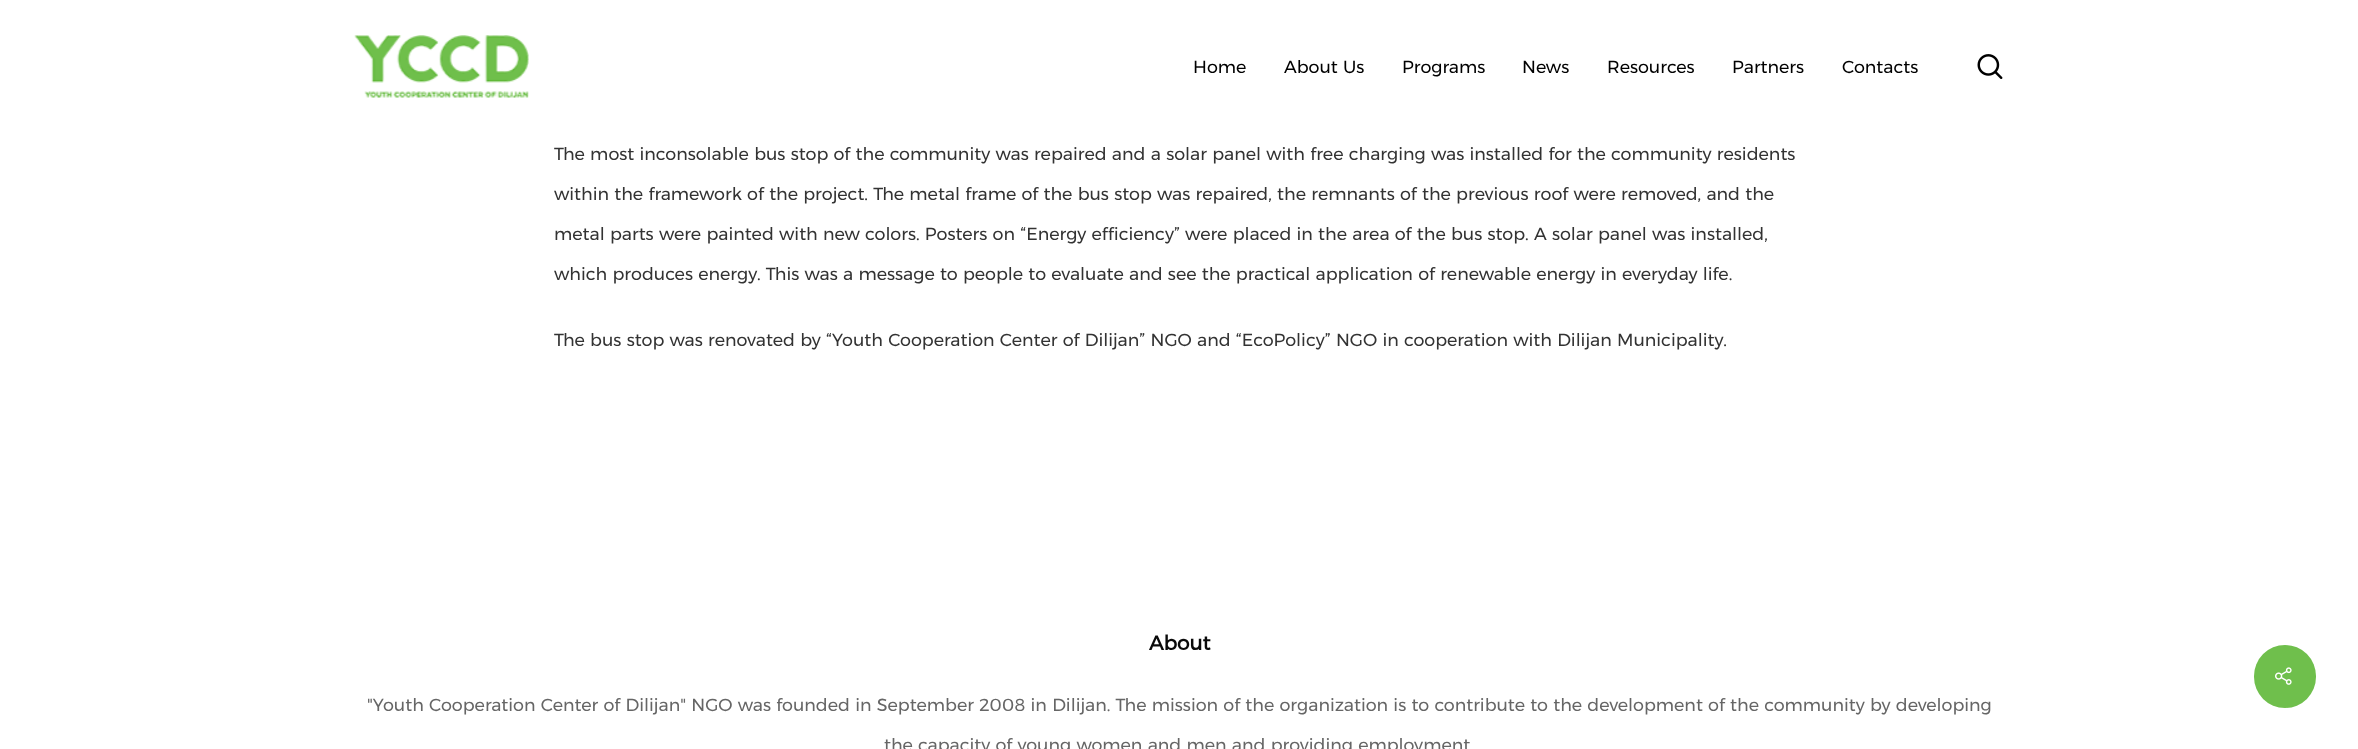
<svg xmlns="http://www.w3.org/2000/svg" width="2358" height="749">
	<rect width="100%" height="100%" fill="#FFFFFF" />
	<image x="354" y="35" width="175" height="63" href="assets/img1.png" />
	<g font-family="'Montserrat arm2'" font-size="17.5" fill="#000000">
		<text x="1193" y="73">Home</text>
		<text x="1284" y="73">About Us</text>
		<text x="1402" y="73">Programs</text>
		<text x="1522" y="73">News</text>
		<text x="1607" y="73">Resources</text>
		<text x="1732" y="73">Partners</text>
		<text x="1842" y="73">Contacts</text>
	</g>
	<image x="1977" y="54" width="26" height="25" href="assets/img2.png" />
	<g font-family="'Montserrat arm2'" font-size="17.5" fill="#333333">
		<text x="554" y="160">The most inconsolable bus stop of the community was repaired and a solar panel with free charging was installed for the community residents</text>
		<text x="554" y="200">within the framework of the project. The metal frame of the bus stop was repaired, the remnants of the previous roof were removed, and the</text>
		<text x="554" y="240">metal parts were painted with new colors. Posters on “Energy efficiency” were placed in the area of the bus stop. A solar panel was installed,</text>
		<text x="554" y="280">which produces energy. This was a message to people to evaluate and see the practical application of renewable energy in everyday life.</text>
		<text x="554" y="346">The bus stop was renovated by “Youth Cooperation Center of Dilijan” NGO and “EcoPolicy” NGO in cooperation with Dilijan Municipality.</text>
	</g>
	<text x="1149" y="650" font-family="'Montserrat arm2'" font-size="20" font-weight="700" fill="#0A0A0A">About</text>
	<g font-family="'Montserrat arm2'" font-size="17.5" fill="#666666">
		<text x="367" y="711">"Youth Cooperation Center of Dilijan" NGO was founded in September 2008 in Dilijan. The mission of the organization is to contribute to the development of the community by developing</text>
		<text x="884" y="751">the capacity of young women and men and providing employment</text>
	</g>
	<rect x="2254" y="645" width="62" height="63" rx="31" fill="#6FBF4C" />
	<image x="2275" y="667" width="17" height="18" href="assets/img3.png" />
</svg>
